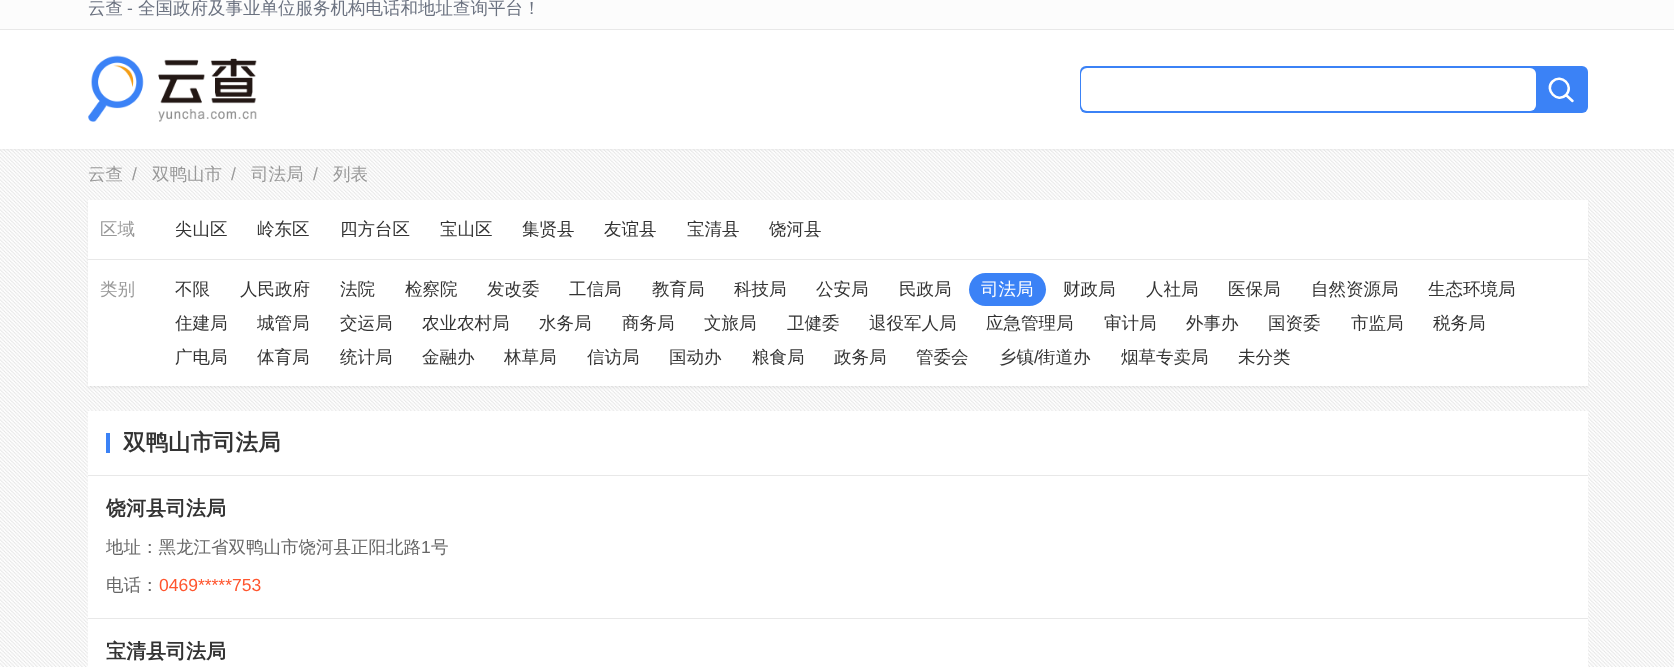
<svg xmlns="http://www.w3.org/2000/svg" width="1674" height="667">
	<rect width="100%" height="100%" fill="#FFFFFF" />
	<image x="0" y="149" width="1674" height="518" href="assets/img1.png" />
	<rect x="0" y="-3" width="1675" height="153" fill="#000000" fill-opacity="0.05" filter="blur(1px)" />
	<rect x="0" y="30" width="1674" height="119" fill="#FFFFFF" />
	<rect x="0" y="0" width="1674" height="29" fill="#FCFCFC" />
	<rect x="0" y="29" width="1674" height="1" fill="#E8E8E8" />
	<text x="88" y="14" font-family="WenQuanYi Zen Hei" font-size="17.5" font-weight="500" fill="#6B7280">云查</text>
	<text x="127" y="14" font-family="Liberation Sans" font-size="17.5" fill="#6B7280">-</text>
	<text x="138" y="14" font-family="WenQuanYi Zen Hei" font-size="17.5" font-weight="500" fill="#6B7280">全国政府及事业单位服务机构电话和地址查询平台！</text>
	<image x="88" y="55" width="169" height="67" href="assets/img2.png" />
	<rect x="1080" y="66" width="508" height="47" rx="6" fill="#3B82F6" />
	<rect x="1081" y="68" width="455" height="43" rx="6" fill="#FFFFFF" />
	<path d="M1572.5 101L1566 95M1566 95C1574.5 86 1561.5 73 1552.5 81.5C1544 90 1557.5 103.5 1566 95Z" fill="none" stroke="#FFFFFF" stroke-width="2.5" stroke-linecap="round" stroke-linejoin="round" />
	<text x="88" y="180" font-family="WenQuanYi Zen Hei" font-size="17.5" font-weight="500" fill="#999999">云查</text>
	<text x="132" y="180" font-family="Liberation Sans" font-size="17.5" fill="#999999">/</text>
	<text x="152" y="180" font-family="WenQuanYi Zen Hei" font-size="17.5" font-weight="500" fill="#999999">双鸭山市</text>
	<text x="231" y="180" font-family="Liberation Sans" font-size="17.5" fill="#999999">/</text>
	<text x="251" y="180" font-family="WenQuanYi Zen Hei" font-size="17.5" font-weight="500" fill="#999999">司法局</text>
	<text x="313" y="180" font-family="Liberation Sans" font-size="17.5" fill="#999999">/</text>
	<text x="333" y="180" font-family="WenQuanYi Zen Hei" font-size="17.5" font-weight="500" fill="#999999">列表</text>
	<rect x="88" y="201" width="1500" height="187" fill="#000000" fill-opacity="0.05" filter="blur(1px)" />
	<rect x="88" y="200" width="1500" height="186" fill="#FFFFFF" />
	<rect x="88" y="259" width="1500" height="1" fill="#E8E8E8" />
	<text x="100" y="235" font-family="WenQuanYi Zen Hei" font-size="17.5" font-weight="500" fill="#999999">区域</text>
	<g font-family="WenQuanYi Zen Hei" font-size="17.5" font-weight="500" fill="#333333">
		<text x="175" y="235">尖山区</text>
		<text x="257" y="235">岭东区</text>
		<text x="340" y="235">四方台区</text>
		<text x="440" y="235">宝山区</text>
		<text x="522" y="235">集贤县</text>
		<text x="604" y="235">友谊县</text>
		<text x="687" y="235">宝清县</text>
		<text x="769" y="235">饶河县</text>
	</g>
	<text x="100" y="295" font-family="WenQuanYi Zen Hei" font-size="17.5" font-weight="500" fill="#999999">类别</text>
	<g font-family="WenQuanYi Zen Hei" font-size="17.5" font-weight="500" fill="#333333">
		<text x="175" y="295">不限</text>
		<text x="240" y="295">人民政府</text>
		<text x="340" y="295">法院</text>
		<text x="405" y="295">检察院</text>
		<text x="487" y="295">发改委</text>
		<text x="569" y="295">工信局</text>
		<text x="652" y="295">教育局</text>
		<text x="734" y="295">科技局</text>
		<text x="816" y="295">公安局</text>
		<text x="899" y="295">民政局</text>
	</g>
	<rect x="969" y="273" width="77" height="33" rx="16.5" fill="#3B82F6" />
	<text x="981" y="295" font-family="WenQuanYi Zen Hei" font-size="17.5" font-weight="500" fill="#FFFFFF">司法局</text>
	<g font-family="WenQuanYi Zen Hei" font-size="17.5" font-weight="500" fill="#333333">
		<text x="1063" y="295">财政局</text>
		<text x="1146" y="295">人社局</text>
		<text x="1228" y="295">医保局</text>
		<text x="1311" y="295">自然资源局</text>
		<text x="1428" y="295">生态环境局</text>
		<text x="175" y="329">住建局</text>
		<text x="257" y="329">城管局</text>
		<text x="340" y="329">交运局</text>
		<text x="422" y="329">农业农村局</text>
		<text x="539" y="329">水务局</text>
		<text x="622" y="329">商务局</text>
		<text x="704" y="329">文旅局</text>
		<text x="787" y="329">卫健委</text>
		<text x="869" y="329">退役军人局</text>
		<text x="986" y="329">应急管理局</text>
		<text x="1104" y="329">审计局</text>
		<text x="1186" y="329">外事办</text>
		<text x="1268" y="329">国资委</text>
		<text x="1351" y="329">市监局</text>
		<text x="1433" y="329">税务局</text>
		<text x="175" y="363">广电局</text>
		<text x="257" y="363">体育局</text>
		<text x="340" y="363">统计局</text>
		<text x="422" y="363">金融办</text>
		<text x="504" y="363">林草局</text>
		<text x="587" y="363">信访局</text>
		<text x="669" y="363">国动办</text>
		<text x="752" y="363">粮食局</text>
		<text x="834" y="363">政务局</text>
		<text x="916" y="363">管委会</text>
		<text x="999" y="363">乡镇</text>
	</g>
	<text x="1034" y="363" font-family="Liberation Sans" font-size="17.5" fill="#333333">/</text>
	<g font-family="WenQuanYi Zen Hei" font-size="17.5" font-weight="500" fill="#333333">
		<text x="1038" y="363">街道办</text>
		<text x="1121" y="363">烟草专卖局</text>
		<text x="1238" y="363">未分类</text>
	</g>
	<rect x="88" y="411" width="1500" height="256" fill="#FFFFFF" />
	<rect x="88" y="475" width="1500" height="1" fill="#E8E8E8" />
	<rect x="106" y="433" width="4" height="20" fill="#3B82F6" />
	<text x="123" y="450" font-family="WenQuanYi Zen Hei" font-size="22.5" font-weight="700" fill="#333333">双鸭山市司法局</text>
	<rect x="88" y="618" width="1500" height="1" fill="#E8E8E8" />
	<text x="106" y="515" font-family="WenQuanYi Zen Hei" font-size="20" font-weight="700" fill="#333333">饶河县司法局</text>
	<text x="106" y="553" font-family="WenQuanYi Zen Hei" font-size="17.5" font-weight="500" fill="#666666">地址：黑龙江省双鸭山市饶河县正阳北路</text>
	<text x="421" y="553" font-family="Liberation Sans" font-size="17.5" fill="#666666">1</text>
	<g font-family="WenQuanYi Zen Hei" font-size="17.5" font-weight="500" fill="#666666">
		<text x="431" y="553">号</text>
		<text x="106" y="591">电话：</text>
	</g>
	<text x="159" y="591" font-family="Liberation Sans" font-size="17.5" fill="#FF552E">0469*****753</text>
	<text x="106" y="658" font-family="WenQuanYi Zen Hei" font-size="20" font-weight="700" fill="#333333">宝清县司法局</text>
</svg>
